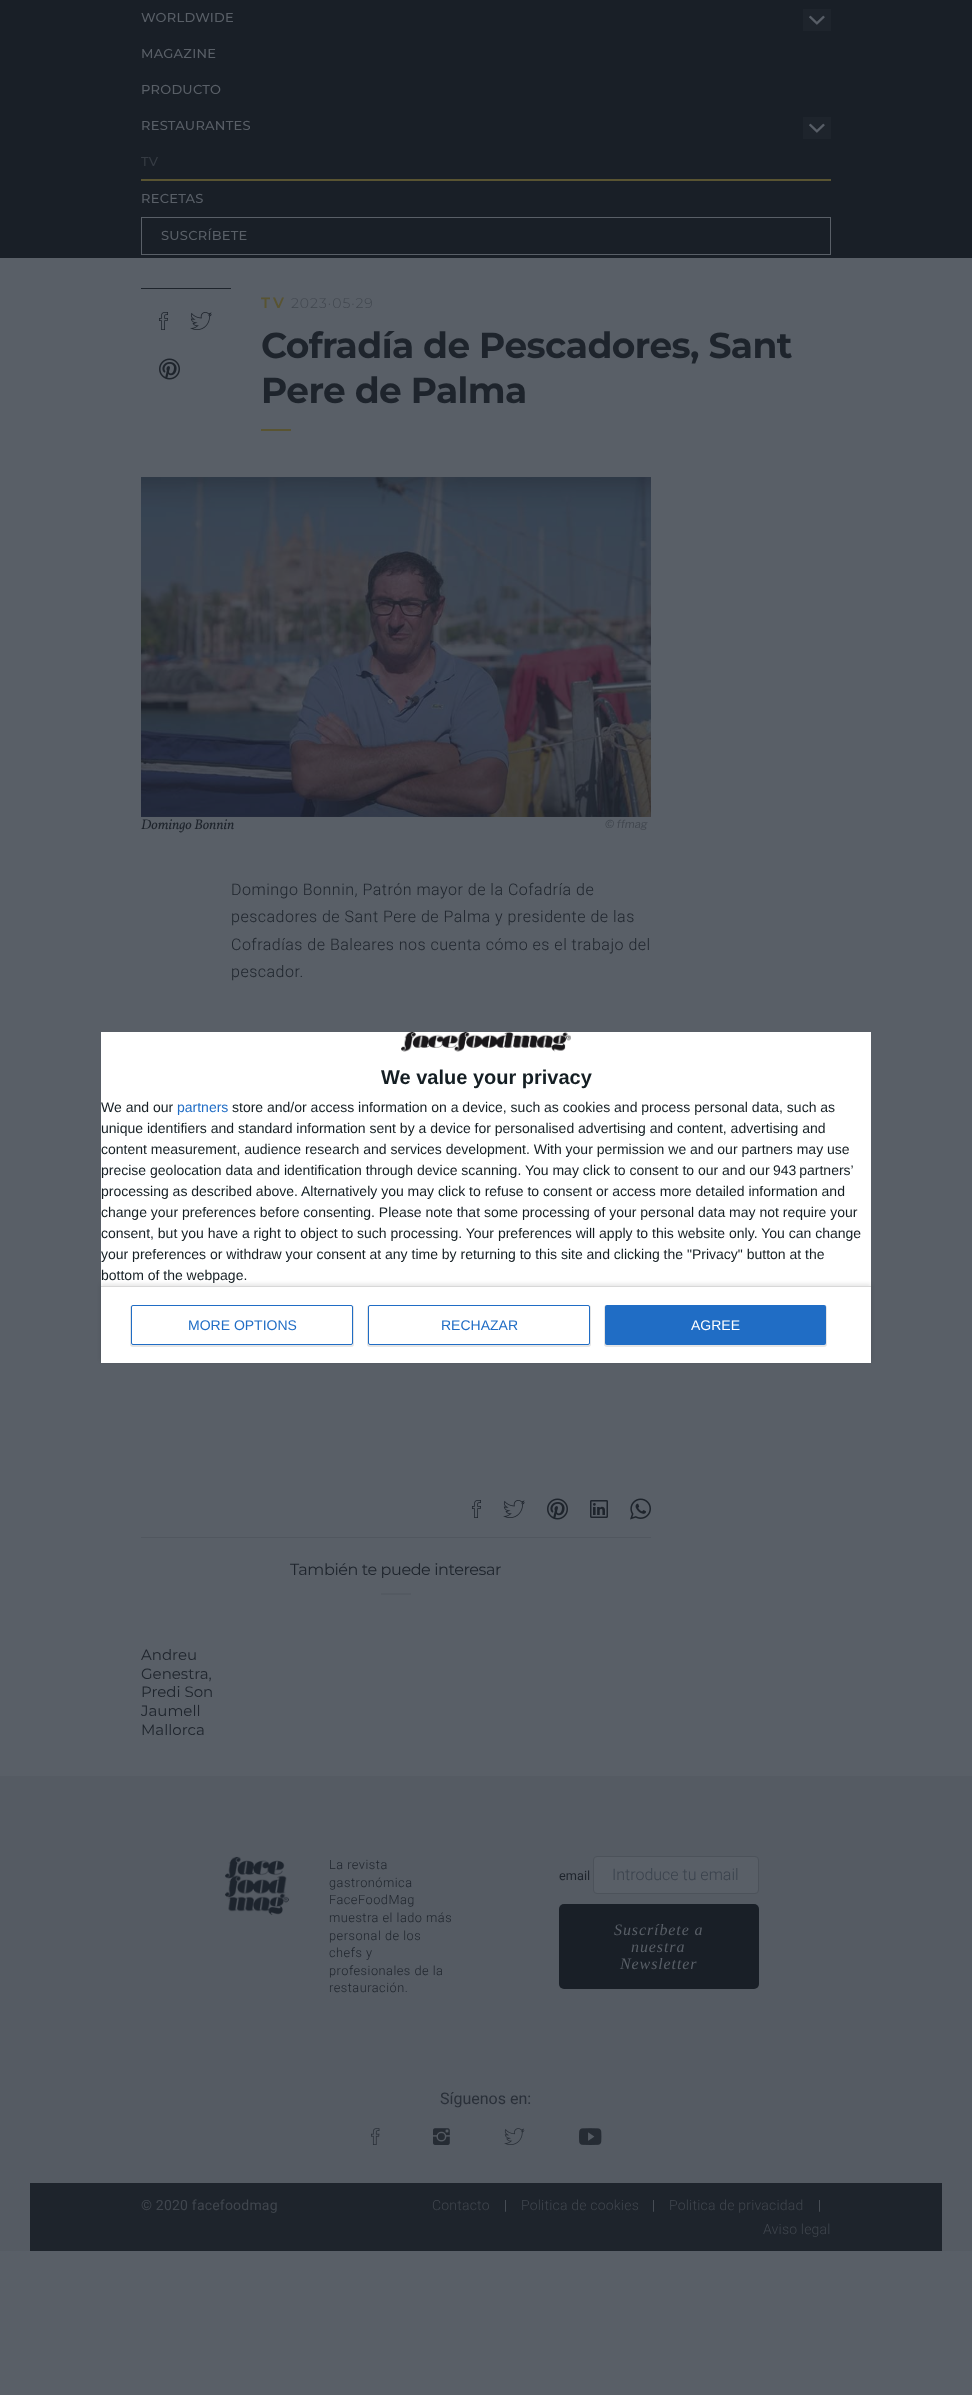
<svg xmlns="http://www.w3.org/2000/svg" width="972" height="2395">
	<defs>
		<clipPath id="clip1"><path d="M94 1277H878V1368H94ZM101 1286H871V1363H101Z" clip-rule="evenodd" /></clipPath>
	</defs>
	<rect width="100%" height="100%" fill="#595F67" />
	<rect x="0" y="0" width="972" height="258" fill="#191F27" />
	<text x="141" y="22" font-family="Montserrat" font-size="13" font-weight="500" letter-spacing="0.25" fill="#595F67">WORLDWIDE</text>
	<rect x="803" y="9" width="28" height="22" fill="#1E242C" />
	<image x="809" y="15" width="16" height="10" href="assets/img1.png" />
	<g font-family="Montserrat" font-size="13" font-weight="500" letter-spacing="0.25" fill="#595F67">
		<text x="141" y="58">MAGAZINE</text>
		<text x="141" y="94">PRODUCTO</text>
		<text x="141" y="130">RESTAURANTES</text>
	</g>
	<rect x="803" y="117" width="28" height="22" fill="#1E242C" />
	<image x="809" y="123" width="16" height="10" href="assets/img1.png" />
	<rect x="141" y="179" width="690" height="2" fill="#595432" />
	<text x="141" y="166" font-family="Montserrat" font-size="13" font-weight="500" letter-spacing="0.25" fill="#353B43">TV</text>
	<text x="141" y="203" font-family="Montserrat" font-size="13" font-weight="500" letter-spacing="0.25" fill="#595F67">RECETAS</text>
	<rect x="141.5" y="217.5" width="689" height="37" fill="none" stroke="#595F67" />
	<text x="161" y="240" font-family="Montserrat" font-size="13" font-weight="500" letter-spacing="0.25" fill="#595F67">SUSCRÍBETE</text>
	<rect x="141" y="288" width="90" height="1" fill="#1E242C" />
	<image x="159" y="312" width="9" height="18" href="assets/img2.png" />
	<image x="190" y="312" width="22" height="18" href="assets/img3.png" />
	<image x="159" y="358" width="21" height="22" href="assets/img4.png" />
	<text x="261" y="308" font-family="Montserrat" font-size="15" font-weight="600" letter-spacing="3" fill="#595432">TV</text>
	<text x="291" y="308" font-family="Montserrat" font-size="14" font-weight="300" letter-spacing="1" fill="#40464E">2023·05·29</text>
	<g font-family="Montserrat" font-size="36" font-weight="700" letter-spacing="-0.6" fill="#1E242C">
		<text x="261" y="358">Cofradía de Pescadores, Sant</text>
		<text x="261" y="403">Pere de Palma</text>
	</g>
	<rect x="261" y="429" width="30" height="2" fill="#595432" />
	<image x="141" y="477" width="510" height="340" href="assets/img5.png" />
	<text x="141" y="829" font-family="Vollkorn" font-size="14" font-style="italic" fill="#1E242C">Domingo Bonnin</text>
	<text x="605" y="828" font-family="Libre Franklin" font-size="11" font-style="italic" fill="#40464E">© ffmag</text>
	<g font-family="Roboto" font-size="16" font-weight="300" letter-spacing="0.5" fill="#1E242C">
		<text x="231" y="895">Domingo Bonnin, Patrón mayor de la Cofadría de</text>
		<text x="231" y="922">pescadores de Sant Pere de Palma y presidente de las</text>
		<text x="231" y="950">Cofradías de Baleares nos cuenta cómo es el trabajo del</text>
		<text x="231" y="977">pescador.</text>
	</g>
	<rect x="141" y="1537" width="510" height="1" fill="#51575F" />
	<image x="472" y="1500" width="9" height="18" href="assets/img2.png" />
	<image x="503" y="1500" width="22" height="18" href="assets/img3.png" />
	<image x="547" y="1498" width="21" height="22" href="assets/img4.png" />
	<image x="590" y="1500" width="18" height="18" href="assets/img6.png" />
	<image x="630" y="1498" width="21" height="22" href="assets/img7.png" />
	<text x="290" y="1575" font-family="Montserrat" font-size="16" letter-spacing="-0.4" fill="#1E242C">También te puede interesar</text>
	<rect x="381" y="1593" width="30" height="2" fill="#545A62" />
	<g font-family="Montserrat" font-size="15" fill="#1E242C">
		<text x="141" y="1660">Andreu</text>
		<text x="141" y="1679">Genestra,</text>
		<text x="141" y="1697">Predi Son</text>
		<text x="141" y="1716">Jaumell</text>
		<text x="141" y="1735">Mallorca</text>
	</g>
	<rect x="101" y="1032" width="770" height="331" fill="#FFFFFF" />
	<image x="401" y="1032" width="170" height="20" href="assets/img8.png" />
	<text x="381" y="1084" font-family="Liberation Sans" font-size="20" font-weight="700" fill="#141E23">We value your privacy</text>
	<text x="101" y="1112" font-family="Liberation Sans" font-size="14" fill="#141E23">We and our</text>
	<text x="177" y="1112" font-family="Liberation Sans" font-size="14" fill="#206DC5">partners</text>
	<g font-family="Liberation Sans" font-size="14" fill="#141E23">
		<text x="232" y="1112">store and/or access information on a device, such as cookies and process personal data, such as</text>
		<text x="101" y="1133">unique identifiers and standard information sent by a device for personalised advertising and content, advertising and</text>
		<text x="101" y="1154">content measurement, audience research and services development. With your permission we and our partners may use</text>
		<text x="101" y="1175">precise geolocation data and identification through device scanning. You may click to consent to our and our</text>
		<text x="773" y="1175" word-spacing="-1">943 partners’</text>
		<text x="101" y="1196">processing as described above. Alternatively you may click to refuse to consent or access more detailed information and</text>
		<text x="101" y="1217">change your preferences before consenting. Please note that some processing of your personal data may not require your</text>
		<text x="101" y="1238">consent, but you have a right to object to such processing. Your preferences will apply to this website only. You can change</text>
		<text x="101" y="1259">your preferences or withdraw your consent at any time by returning to this site and clicking the "Privacy" button at the</text>
		<text x="101" y="1280">bottom of the webpage.</text>
	</g>
	<g clip-path="url(#clip1)">
		<rect x="101" y="1284" width="770" height="77" fill="#000000" fill-opacity="0.1" filter="blur(2px)" />
	</g>
	<rect x="101" y="1286" width="770" height="1" fill="#D8D8D8" />
	<rect x="130" y="1305" width="224" height="42" rx="3" fill="#000000" fill-opacity="0.1" filter="blur(0.5px)" />
	<rect x="131.5" y="1305.5" width="221" height="39" rx="1.5" fill="#FFFFFF" stroke="#206DC5" />
	<text x="188" y="1330" font-family="Liberation Sans" font-size="14" fill="#206DC5">MORE OPTIONS</text>
	<rect x="367" y="1305" width="224" height="42" rx="3" fill="#000000" fill-opacity="0.1" filter="blur(0.5px)" />
	<rect x="368.5" y="1305.5" width="221" height="39" rx="1.5" fill="#FFFFFF" stroke="#206DC5" />
	<text x="441" y="1330" font-family="Liberation Sans" font-size="14" fill="#206DC5">RECHAZAR</text>
	<rect x="604" y="1305" width="223" height="42" rx="3" fill="#000000" fill-opacity="0.1" filter="blur(0.5px)" />
	<rect x="605" y="1305" width="221" height="40" rx="2" fill="#206DC5" />
	<text x="691" y="1330" font-family="Liberation Sans" font-size="14" fill="#FFFFFF">AGREE</text>
	<rect x="0" y="1776" width="972" height="475" fill="#555B63" />
	<image x="225" y="1856" width="64" height="59" href="assets/img9.png" />
	<g font-family="Roboto" font-size="12.75" font-weight="300" letter-spacing="0.5" fill="#1E242C">
		<text x="329" y="1869">La revista</text>
		<text x="329" y="1887">gastronómica</text>
		<text x="329" y="1904">FaceFoodMag</text>
		<text x="329" y="1922">muestra el lado más</text>
		<text x="329" y="1940">personal de los</text>
		<text x="329" y="1957">chefs y</text>
		<text x="329" y="1975">profesionales de la</text>
		<text x="329" y="1992">restauración.</text>
	</g>
	<text x="559" y="1880" font-family="Roboto" font-size="12.75" fill="#1E242C">email</text>
	<rect x="593.5" y="1856.5" width="165" height="37" rx="3.5" fill="#595F67" stroke="#4C525A" />
	<text x="612" y="1880" font-family="Roboto" font-size="16" font-weight="300" fill="#3A424D">Introduce tu email</text>
	<rect x="559" y="1904" width="200" height="85" rx="5" fill="#191F27" />
	<g font-family="Liberation Serif" font-size="16" font-style="italic" letter-spacing="0.9" fill="#595F67">
		<text x="614" y="1935">Suscríbete a</text>
		<text x="631" y="1952">nuestra</text>
		<text x="620" y="1969">Newsletter</text>
	</g>
	<text x="440" y="2104" font-family="Roboto" font-size="16" fill="#2A3039">Síguenos en:</text>
	<image x="371" y="2128" width="9" height="17" href="assets/img10.png" />
	<image x="433" y="2128" width="17" height="17" href="assets/img11.png" />
	<image x="504" y="2128" width="21" height="17" href="assets/img12.png" />
	<image x="579" y="2128" width="23" height="17" href="assets/img13.png" />
	<rect x="30" y="2183" width="912" height="68" fill="#1E242C" />
	<text x="141" y="2210" font-family="Roboto" font-size="14" letter-spacing="0.2" fill="#40464E">© 2020 facefoodmag</text>
	<text x="432" y="2210" font-family="Roboto" font-size="14" font-weight="300" letter-spacing="0.2" fill="#40464E">Contacto</text>
	<text x="504" y="2210" font-family="Roboto" font-size="14" font-weight="300" letter-spacing="0.2" fill="#595F67">|</text>
	<text x="521" y="2210" font-family="Roboto" font-size="14" font-weight="300" letter-spacing="0.2" fill="#40464E">Politica de cookies</text>
	<text x="652" y="2210" font-family="Roboto" font-size="14" font-weight="300" letter-spacing="0.2" fill="#595F67">|</text>
	<text x="669" y="2210" font-family="Roboto" font-size="14" font-weight="300" letter-spacing="0.2" fill="#40464E">Politica de privacidad</text>
	<text x="818" y="2210" font-family="Roboto" font-size="14" font-weight="300" letter-spacing="0.2" fill="#595F67">|</text>
	<text x="763" y="2234" font-family="Roboto" font-size="14" font-weight="300" letter-spacing="0.2" fill="#40464E">Aviso legal</text>
</svg>
